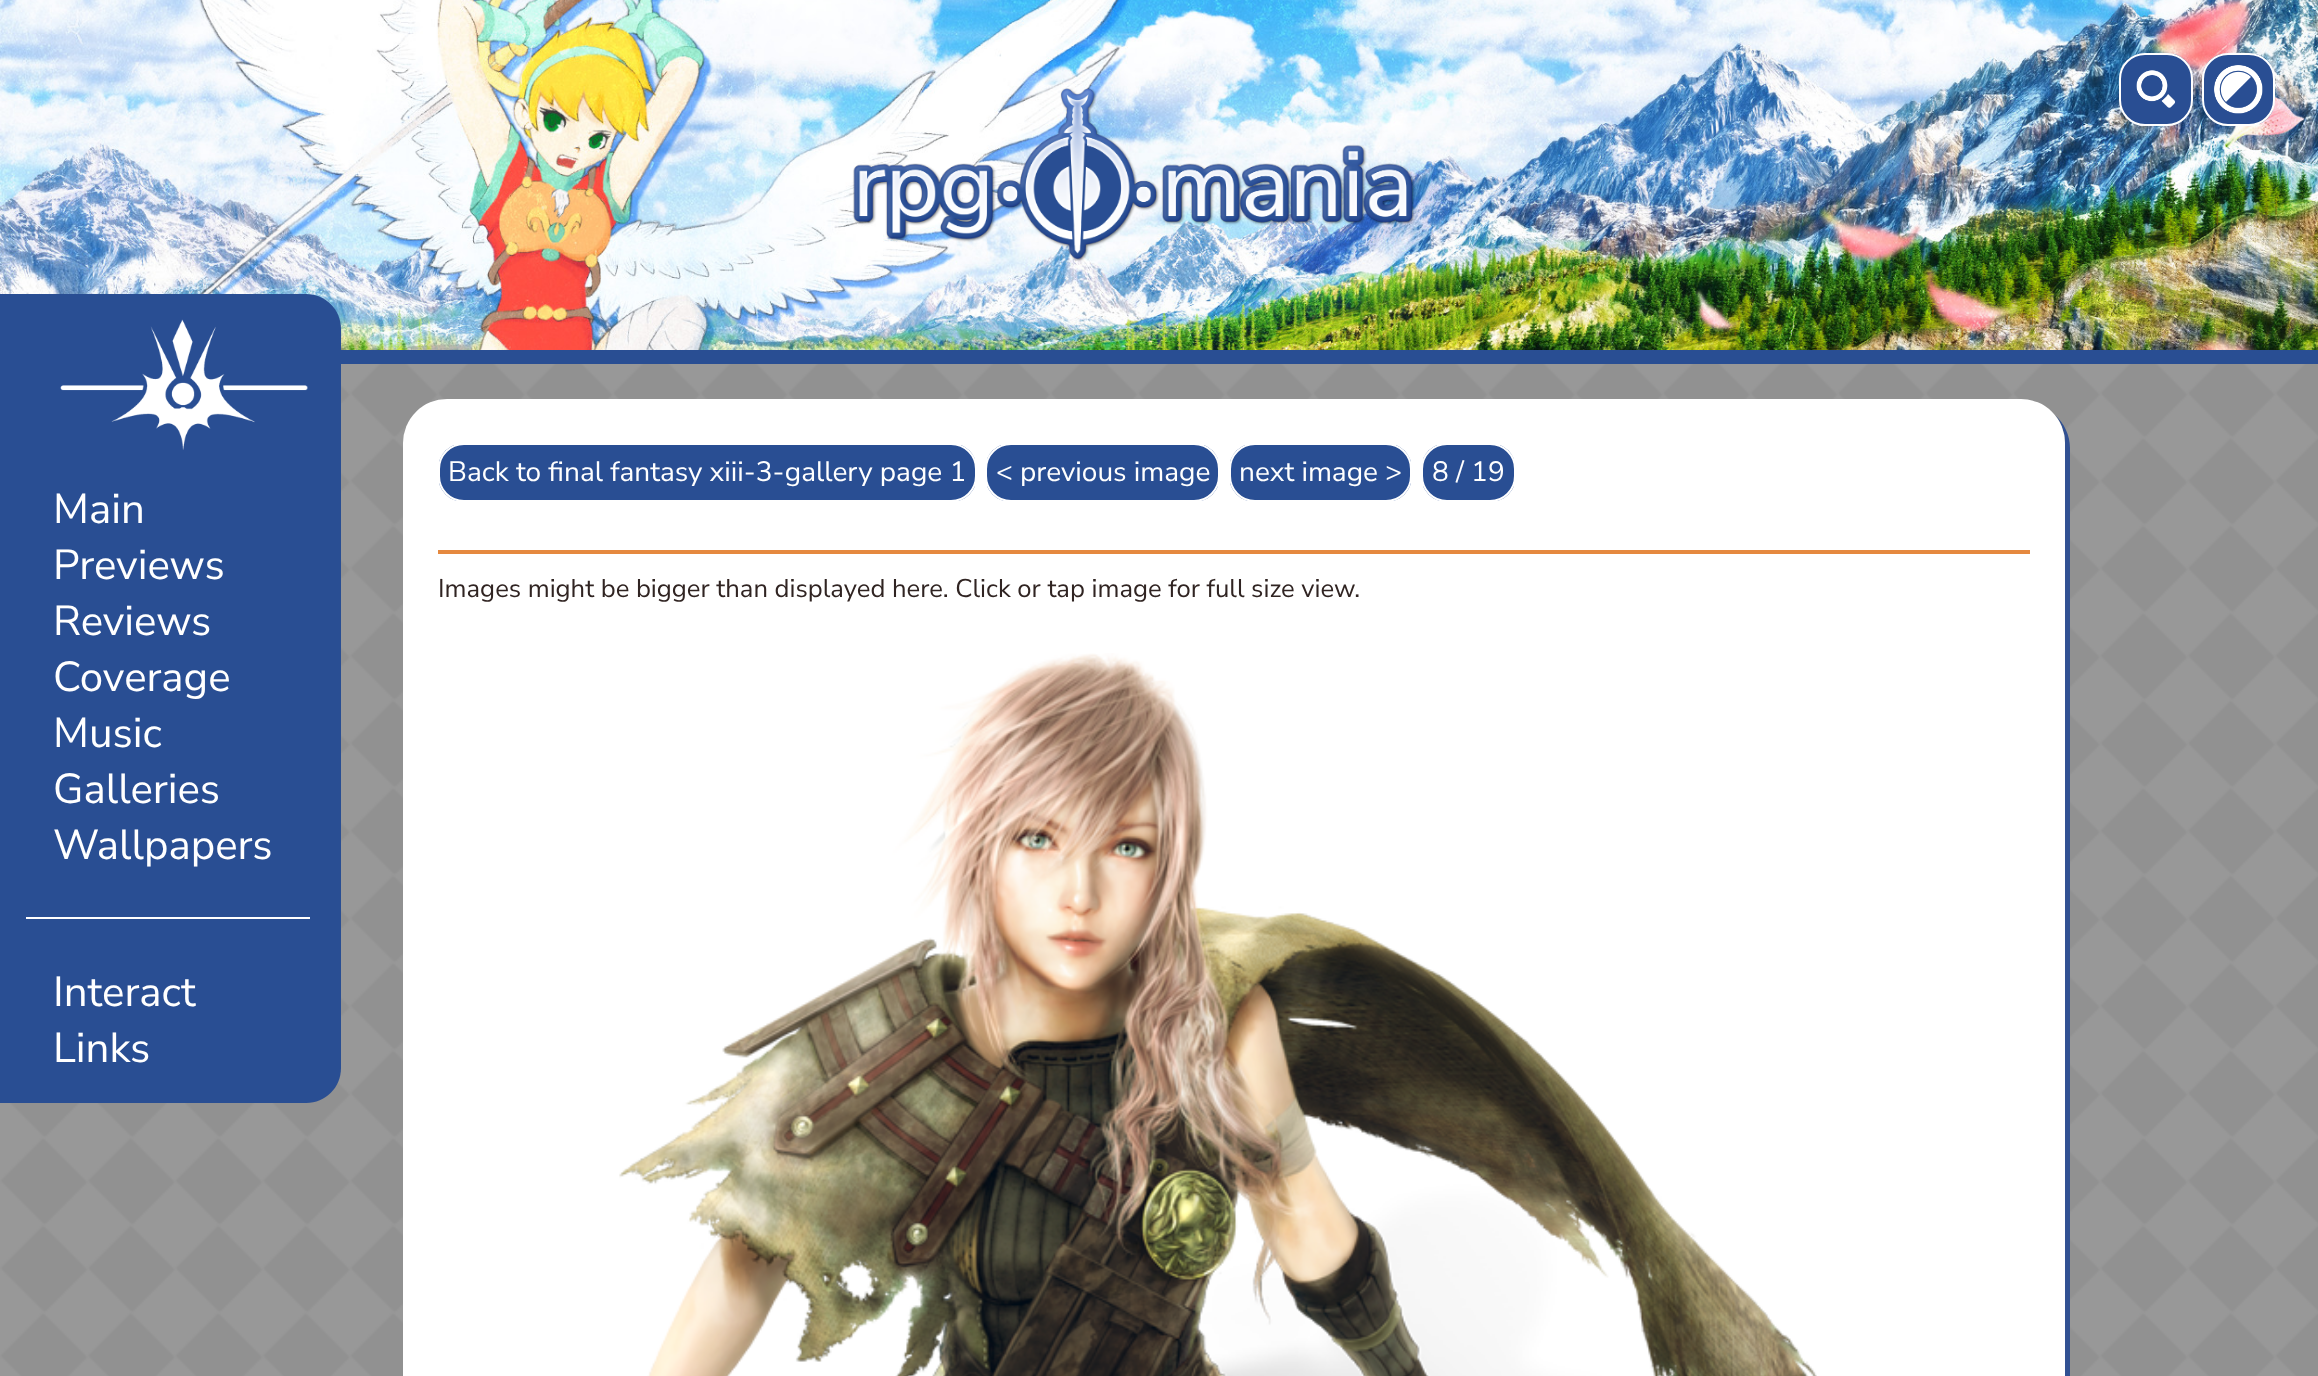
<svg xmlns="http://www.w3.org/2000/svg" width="2318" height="1376">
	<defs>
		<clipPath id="clip1"><rect x="2119" y="53" width="74" height="73" rx="26" /></clipPath>
		<clipPath id="clip2"><rect x="2202" y="53" width="73" height="73" rx="26" /></clipPath>
		<clipPath id="clip3"><rect x="438" y="443" width="539" height="59" rx="26" /></clipPath>
		<clipPath id="clip4"><rect x="985" y="443" width="235" height="59" rx="26" /></clipPath>
		<clipPath id="clip5"><rect x="1229" y="443" width="183" height="59" rx="26" /></clipPath>
		<clipPath id="clip6"><rect x="1421" y="443" width="95" height="59" rx="26" /></clipPath>
	</defs>
	<rect width="100%" height="100%" fill="#FFFFFF" />
	<image x="0" y="0" width="2318" height="350" href="assets/img4.png" />
	<g clip-path="url(#clip1)">
		<rect x="2121" y="54" width="70" height="70" fill="#294E93" />
	</g>
	<rect x="2120" y="54" width="72" height="71" rx="25" fill="none" stroke="#FFFFFF" stroke-width="2" />
	<image x="2136" y="70" width="40" height="38" href="assets/img1.png" />
	<g clip-path="url(#clip2)">
		<rect x="2203" y="54" width="70" height="70" fill="#294E93" />
	</g>
	<rect x="2203" y="54" width="71" height="71" rx="25" fill="none" stroke="#FFFFFF" stroke-width="2" />
	<image x="2214" y="65" width="49" height="49" href="assets/img2.png" />
	<image x="0" y="364" width="2318" height="1012" href="assets/img3.png" />
	<rect x="341" y="350" width="1977" height="14" fill="#294E93" />
	<image x="781" y="88" width="771" height="173" href="assets/img5.png" />
	<path d="M0 294H306C325.5 294 341 309.5 341 329V1068C341 1087.5 325.5 1103 306 1103H0Z" fill="#294E93" />
	<image x="60" y="319" width="248" height="131" href="assets/img6.png" />
	<g font-family="Nunito Sans" font-size="42" fill="#FFFFFF">
		<text x="53" y="523">Main</text>
		<text x="53" y="579">Previews</text>
		<text x="53" y="635">Reviews</text>
		<text x="53" y="691">Coverage</text>
		<text x="53" y="747">Music</text>
		<text x="53" y="803">Galleries</text>
		<text x="53" y="859">Wallpapers</text>
	</g>
	<rect x="26" y="917" width="284" height="2" fill="#FFFFFF" />
	<g font-family="Nunito Sans" font-size="42" fill="#FFFFFF">
		<text x="53" y="1006">Interact</text>
		<text x="53" y="1062">Links</text>
	</g>
	<path d="M419 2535C427 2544 439 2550 452 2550H2026C2050 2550 2070 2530 2070 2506V448C2070 435 2064 423 2055 415C2061 422 2065 432 2065 443V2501C2065 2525 2045 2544 2021 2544H446C436 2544 426 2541 419 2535Z" fill="#315193" />
	<rect x="403" y="399" width="1662" height="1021" rx="44" fill="#FFFFFF" />
	<g clip-path="url(#clip3)">
		<rect x="439" y="445" width="536" height="56" fill="#294E93" />
	</g>
	<rect x="439" y="444" width="537" height="57" rx="25" fill="none" stroke="#FFFFFF" stroke-width="2" />
	<text x="448" y="481" font-family="Nunito Sans" font-size="28" fill="#FFFFFF">Back to final fantasy xiii-3-gallery page 1</text>
	<g clip-path="url(#clip4)">
		<rect x="987" y="445" width="231" height="56" fill="#294E93" />
	</g>
	<rect x="986" y="444" width="233" height="57" rx="25" fill="none" stroke="#FFFFFF" stroke-width="2" />
	<text x="996" y="481" font-family="Nunito Sans" font-size="28" fill="#FFFFFF">&lt; previous image</text>
	<g clip-path="url(#clip5)">
		<rect x="1230" y="445" width="181" height="56" fill="#294E93" />
	</g>
	<rect x="1230" y="444" width="181" height="57" rx="25" fill="none" stroke="#FFFFFF" stroke-width="2" />
	<text x="1239" y="481" font-family="Nunito Sans" font-size="28" fill="#FFFFFF">next image &gt;</text>
	<g clip-path="url(#clip6)">
		<rect x="1423" y="445" width="91" height="56" fill="#294E93" />
	</g>
	<rect x="1422" y="444" width="93" height="57" rx="25" fill="none" stroke="#FFFFFF" stroke-width="2" />
	<text x="1432" y="481" font-family="Nunito Sans" font-size="28" fill="#FFFFFF">8 / 19</text>
	<rect x="438" y="550" width="1592" height="4" fill="#E5893F" />
	<text x="438" y="597" font-family="Nunito Sans" font-size="25.65" fill="#302422">Images might be bigger than displayed here. Click or tap image for full size view.</text>
	<image x="619" y="653" width="1198" height="723" href="assets/img7.png" />
</svg>
